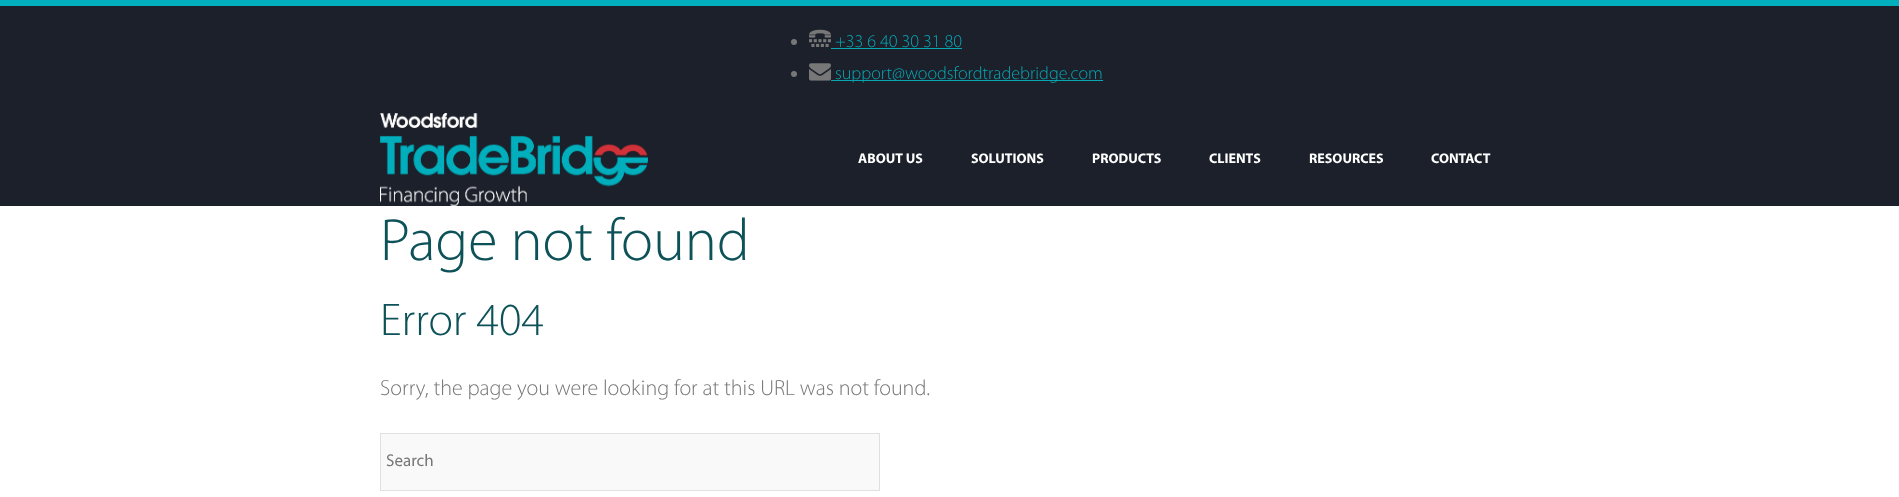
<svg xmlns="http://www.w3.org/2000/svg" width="1899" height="497">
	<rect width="100%" height="100%" fill="#FFFFFF" />
	<rect x="0" y="6" width="1899" height="200" fill="#1B202A" />
	<rect x="0" y="0" width="1899" height="6" fill="#00AEBC" />
	<circle cx="794" cy="42" r="3" fill="#777777" />
	<image x="809" y="29" width="22" height="18" href="assets/img1.png" />
	<text x="835" y="47" font-family="Myriad" font-size="18" font-weight="300" fill="#08A6B3">+33 6 40 30 31 80</text>
	<rect x="831" y="48" width="131" height="1" fill="#08A6B3" />
	<circle cx="794" cy="74" r="3" fill="#777777" />
	<image x="809" y="63" width="22" height="18" href="assets/img2.png" />
	<rect x="831" y="80" width="272" height="1" fill="#08A6B3" />
	<text x="835" y="79" font-family="Myriad" font-size="18" font-weight="300" fill="#08A6B3">support@woodsfordtradebridge.com</text>
	<image x="380" y="113" width="268" height="93" href="assets/img3.png" />
	<g font-family="Myriad" font-size="14" font-weight="700" fill="#FFFFFF">
		<text x="858" y="163">ABOUT US</text>
		<text x="971" y="163">SOLUTIONS</text>
		<text x="1092" y="163">PRODUCTS</text>
		<text x="1209" y="163">CLIENTS</text>
		<text x="1309" y="163">RESOURCES</text>
		<text x="1431" y="163">CONTACT</text>
	</g>
	<text x="380" y="260" font-family="Myriad" font-size="60" font-weight="300" fill="#0C5258">Page not found</text>
	<text x="380" y="335" font-family="Myriad" font-size="46" font-weight="300" fill="#0C5258">Error 404</text>
	<text x="380" y="395" font-family="Myriad" font-size="22" font-weight="300" fill="#777777">Sorry, the page you were looking for at this URL was not found.</text>
	<rect x="380.5" y="433.5" width="499" height="57" fill="#F9F9F9" stroke="#E0E0E0" />
	<text x="386" y="466" font-family="Myriad" font-size="17" fill="#777777">Search</text>
</svg>
